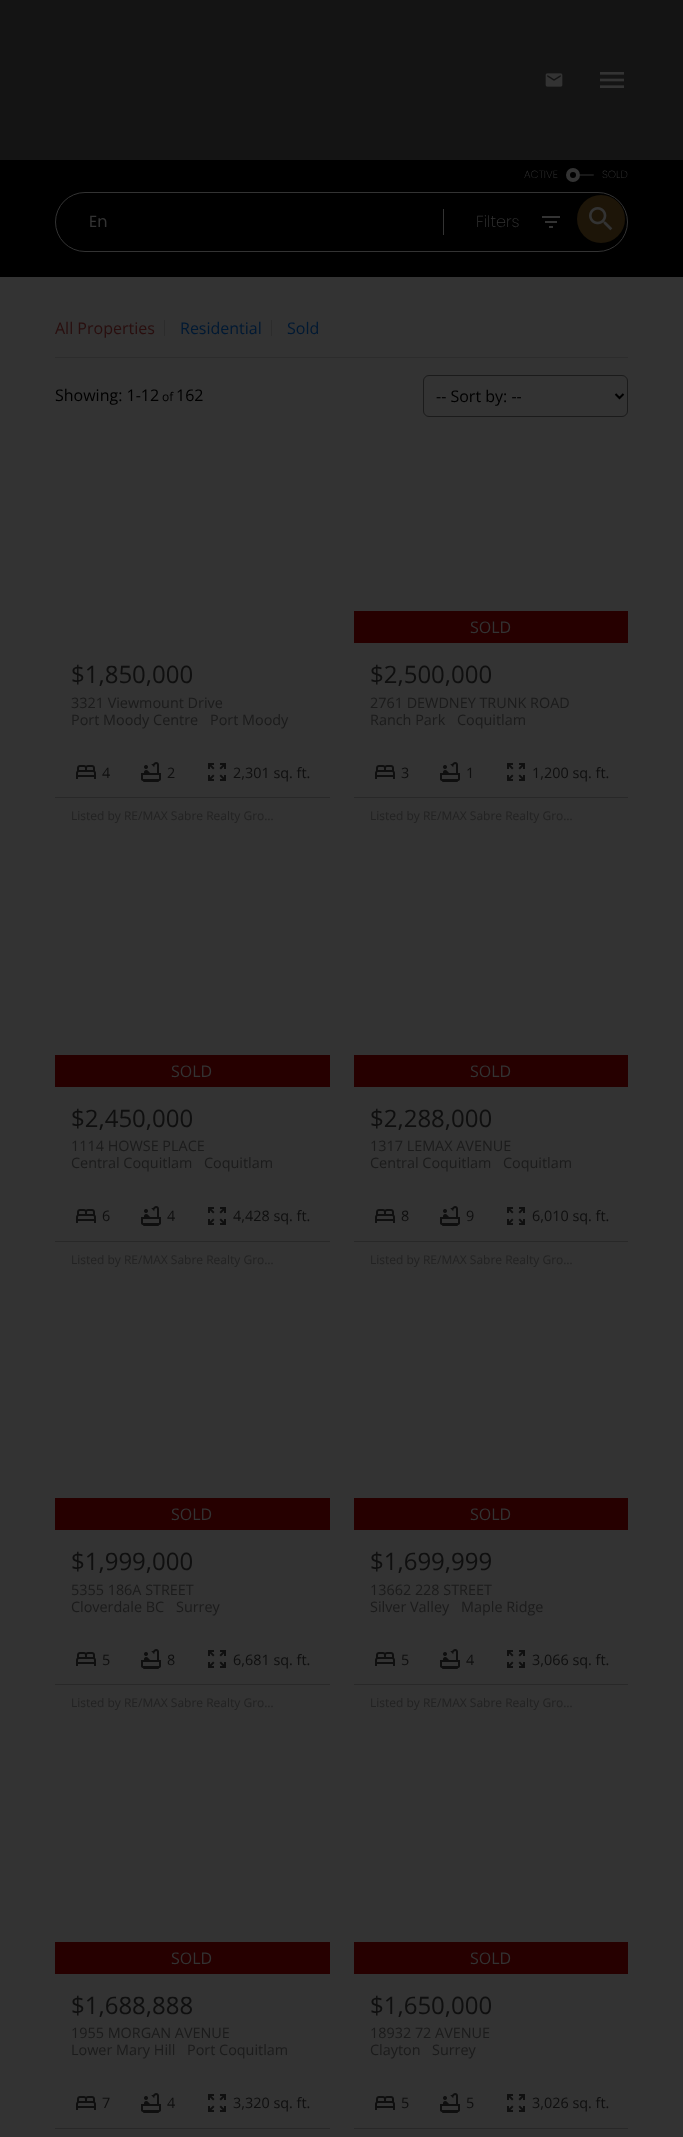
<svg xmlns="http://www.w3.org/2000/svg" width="683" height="2137">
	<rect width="100%" height="100%" fill="#333333" />
	<rect x="0" y="0" width="683" height="160" fill="#141414" />
	<image x="545" y="73" width="18" height="14" href="assets/img1.png" />
	<image x="600" y="72" width="24" height="16" href="assets/img2.png" />
	<rect x="0" y="160" width="683" height="117" fill="#000000" />
	<text x="524" y="178" font-family="Poppins" font-size="10.5" font-weight="200" fill="#333333">ACTIVE</text>
	<circle cx="573" cy="175" r="5" fill="none" stroke="#333333" stroke-width="4" />
	<path d="M580 174H593C593.5 174 594 174.5 594 175C594 175.5 593.5 176 593 176H580Z" fill="#181818" />
	<text x="602" y="178" font-family="Poppins" font-size="10.5" font-weight="200" fill="#333333">SOLD</text>
	<rect x="55.5" y="192.5" width="572" height="59" rx="29.5" fill="none" stroke="#333333" />
	<text x="89" y="227" font-family="Poppins" font-size="16" fill="#333333">En</text>
	<image x="542" y="216" width="18" height="12" href="assets/img3.png" />
	<rect x="443" y="209" width="1" height="26" fill="#333333" />
	<text x="476" y="227" font-family="Poppins" font-size="16" font-weight="200" fill="#333333">Filters</text>
	<circle cx="601" cy="219" r="24" fill="#1D1508" />
	<image x="589" y="207" width="24" height="24" href="assets/img4.png" />
	<rect x="164" y="320" width="1" height="16" fill="#2C2C2C" />
	<text x="55" y="334" font-family="Open Sans" font-size="16" fill="#290E0E">All Properties</text>
	<rect x="271" y="320" width="1" height="16" fill="#2C2C2C" />
	<g font-family="Open Sans" font-size="16" fill="#001933">
		<text x="180" y="334">Residential</text>
		<text x="287" y="334">Sold</text>
	</g>
	<rect x="55" y="357" width="573" height="1" fill="#2C2C2C" />
	<text x="55" y="401" font-family="Open Sans" font-size="16" fill="#000000">Showing: 1-12</text>
	<text x="162" y="401" font-family="Open Sans" font-size="12" fill="#000000">of</text>
	<text x="176" y="401" font-family="Open Sans" font-size="16" fill="#000000">162</text>
	<rect x="423.5" y="375.5" width="204" height="41" rx="5.5" fill="none" stroke="#1B1B1B" />
	<path d="M615.5 394L619.5 398L623.5 394" fill="none" stroke="#000000" stroke-width="2" />
	<text x="436" y="402" font-family="Open Sans" font-size="16" fill="#000000">-- Sort by: --</text>
	<text x="71" y="683" font-family="Open Sans" font-size="24" fill="#0F0F0F">$1,850,000</text>
	<g font-family="Open Sans" font-size="14.4" fill="#1B1B1B">
		<text x="71" y="708">3321 Viewmount Drive</text>
		<text x="71" y="725">Port Moody Centre</text>
		<text x="210" y="725">Port Moody</text>
	</g>
	<image x="76" y="765" width="20" height="14" href="assets/img5.png" />
	<text x="102" y="778" font-family="Open Sans" font-size="14.4" fill="#0F0F0F">4</text>
	<image x="141" y="762" width="20" height="20" href="assets/img6.png" />
	<text x="167" y="778" font-family="Open Sans" font-size="14.4" fill="#0F0F0F">2</text>
	<image x="208" y="763" width="18" height="18" href="assets/img7.png" />
	<text x="233" y="778" font-family="Open Sans" font-size="14.4" fill="#0F0F0F">2,301 sq. ft.</text>
	<rect x="55" y="797" width="275" height="1" fill="#282828" />
	<text x="71" y="820" font-family="Open Sans" font-size="12" fill="#222222">Listed by RE/MAX Sabre Realty Gro…</text>
	<rect x="354" y="611" width="274" height="32" fill="#260000" />
	<text x="470" y="633" font-family="Open Sans" font-size="16" fill="#333333">SOLD</text>
	<text x="370" y="683" font-family="Open Sans" font-size="24" fill="#0F0F0F">$2,500,000</text>
	<g font-family="Open Sans" font-size="14.4" fill="#1B1B1B">
		<text x="370" y="708">2761 DEWDNEY TRUNK ROAD</text>
		<text x="370" y="725">Ranch Park</text>
		<text x="457" y="725">Coquitlam</text>
	</g>
	<image x="375" y="765" width="20" height="14" href="assets/img5.png" />
	<text x="401" y="778" font-family="Open Sans" font-size="14.4" fill="#0F0F0F">3</text>
	<image x="440" y="762" width="20" height="20" href="assets/img6.png" />
	<text x="466" y="778" font-family="Open Sans" font-size="14.4" fill="#0F0F0F">1</text>
	<image x="507" y="763" width="18" height="18" href="assets/img7.png" />
	<text x="532" y="778" font-family="Open Sans" font-size="14.4" fill="#0F0F0F">1,200 sq. ft.</text>
	<rect x="354" y="797" width="274" height="1" fill="#282828" />
	<text x="370" y="820" font-family="Open Sans" font-size="12" fill="#222222">Listed by RE/MAX Sabre Realty Gro…</text>
	<rect x="55" y="1055" width="275" height="32" fill="#260000" />
	<text x="171" y="1077" font-family="Open Sans" font-size="16" fill="#333333">SOLD</text>
	<text x="71" y="1127" font-family="Open Sans" font-size="24" fill="#0F0F0F">$2,450,000</text>
	<g font-family="Open Sans" font-size="14.4" fill="#1B1B1B">
		<text x="71" y="1151">1114 HOWSE PLACE</text>
		<text x="71" y="1168">Central Coquitlam</text>
		<text x="204" y="1168">Coquitlam</text>
	</g>
	<image x="76" y="1209" width="20" height="14" href="assets/img5.png" />
	<text x="102" y="1221" font-family="Open Sans" font-size="14.4" fill="#0F0F0F">6</text>
	<image x="141" y="1206" width="20" height="20" href="assets/img6.png" />
	<text x="167" y="1221" font-family="Open Sans" font-size="14.4" fill="#0F0F0F">4</text>
	<image x="208" y="1207" width="18" height="18" href="assets/img7.png" />
	<text x="233" y="1221" font-family="Open Sans" font-size="14.4" fill="#0F0F0F">4,428 sq. ft.</text>
	<rect x="55" y="1241" width="275" height="1" fill="#282828" />
	<text x="71" y="1264" font-family="Open Sans" font-size="12" fill="#222222">Listed by RE/MAX Sabre Realty Gro…</text>
	<rect x="354" y="1055" width="274" height="32" fill="#260000" />
	<text x="470" y="1077" font-family="Open Sans" font-size="16" fill="#333333">SOLD</text>
	<text x="370" y="1127" font-family="Open Sans" font-size="24" fill="#0F0F0F">$2,288,000</text>
	<g font-family="Open Sans" font-size="14.4" fill="#1B1B1B">
		<text x="370" y="1151">1317 LEMAX AVENUE</text>
		<text x="370" y="1168">Central Coquitlam</text>
		<text x="503" y="1168">Coquitlam</text>
	</g>
	<image x="375" y="1209" width="20" height="14" href="assets/img5.png" />
	<text x="401" y="1221" font-family="Open Sans" font-size="14.4" fill="#0F0F0F">8</text>
	<image x="440" y="1206" width="20" height="20" href="assets/img6.png" />
	<text x="466" y="1221" font-family="Open Sans" font-size="14.4" fill="#0F0F0F">9</text>
	<image x="507" y="1207" width="18" height="18" href="assets/img7.png" />
	<text x="532" y="1221" font-family="Open Sans" font-size="14.4" fill="#0F0F0F">6,010 sq. ft.</text>
	<rect x="354" y="1241" width="274" height="1" fill="#282828" />
	<text x="370" y="1264" font-family="Open Sans" font-size="12" fill="#222222">Listed by RE/MAX Sabre Realty Gro…</text>
	<rect x="55" y="1498" width="275" height="32" fill="#260000" />
	<text x="171" y="1520" font-family="Open Sans" font-size="16" fill="#333333">SOLD</text>
	<text x="71" y="1570" font-family="Open Sans" font-size="24" fill="#0F0F0F">$1,999,000</text>
	<g font-family="Open Sans" font-size="14.4" fill="#1B1B1B">
		<text x="71" y="1595">5355 186A STREET</text>
		<text x="71" y="1612">Cloverdale BC</text>
		<text x="176" y="1612">Surrey</text>
	</g>
	<image x="76" y="1652" width="20" height="14" href="assets/img5.png" />
	<text x="102" y="1665" font-family="Open Sans" font-size="14.4" fill="#0F0F0F">5</text>
	<image x="141" y="1649" width="20" height="20" href="assets/img6.png" />
	<text x="167" y="1665" font-family="Open Sans" font-size="14.4" fill="#0F0F0F">8</text>
	<image x="208" y="1650" width="18" height="18" href="assets/img7.png" />
	<text x="233" y="1665" font-family="Open Sans" font-size="14.4" fill="#0F0F0F">6,681 sq. ft.</text>
	<rect x="55" y="1684" width="275" height="1" fill="#282828" />
	<text x="71" y="1707" font-family="Open Sans" font-size="12" fill="#222222">Listed by RE/MAX Sabre Realty Gro…</text>
	<rect x="354" y="1498" width="274" height="32" fill="#260000" />
	<text x="470" y="1520" font-family="Open Sans" font-size="16" fill="#333333">SOLD</text>
	<text x="370" y="1570" font-family="Open Sans" font-size="24" fill="#0F0F0F">$1,699,999</text>
	<g font-family="Open Sans" font-size="14.4" fill="#1B1B1B">
		<text x="370" y="1595">13662 228 STREET</text>
		<text x="370" y="1612">Silver Valley</text>
		<text x="461" y="1612">Maple Ridge</text>
	</g>
	<image x="375" y="1652" width="20" height="14" href="assets/img5.png" />
	<text x="401" y="1665" font-family="Open Sans" font-size="14.4" fill="#0F0F0F">5</text>
	<image x="440" y="1649" width="20" height="20" href="assets/img6.png" />
	<text x="466" y="1665" font-family="Open Sans" font-size="14.4" fill="#0F0F0F">4</text>
	<image x="507" y="1650" width="18" height="18" href="assets/img7.png" />
	<text x="532" y="1665" font-family="Open Sans" font-size="14.4" fill="#0F0F0F">3,066 sq. ft.</text>
	<rect x="354" y="1684" width="274" height="1" fill="#282828" />
	<text x="370" y="1707" font-family="Open Sans" font-size="12" fill="#222222">Listed by RE/MAX Sabre Realty Gro…</text>
	<rect x="55" y="1942" width="275" height="32" fill="#260000" />
	<text x="171" y="1964" font-family="Open Sans" font-size="16" fill="#333333">SOLD</text>
	<text x="71" y="2014" font-family="Open Sans" font-size="24" fill="#0F0F0F">$1,688,888</text>
	<g font-family="Open Sans" font-size="14.4" fill="#1B1B1B">
		<text x="71" y="2038">1955 MORGAN AVENUE</text>
		<text x="71" y="2055">Lower Mary Hill</text>
		<text x="187" y="2055">Port Coquitlam</text>
	</g>
	<image x="76" y="2096" width="20" height="14" href="assets/img5.png" />
	<text x="102" y="2108" font-family="Open Sans" font-size="14.4" fill="#0F0F0F">7</text>
	<image x="141" y="2093" width="20" height="20" href="assets/img6.png" />
	<text x="167" y="2108" font-family="Open Sans" font-size="14.4" fill="#0F0F0F">4</text>
	<image x="208" y="2094" width="18" height="18" href="assets/img7.png" />
	<text x="233" y="2108" font-family="Open Sans" font-size="14.4" fill="#0F0F0F">3,320 sq. ft.</text>
	<rect x="55" y="2128" width="275" height="1" fill="#282828" />
	<rect x="354" y="1942" width="274" height="32" fill="#260000" />
	<text x="470" y="1964" font-family="Open Sans" font-size="16" fill="#333333">SOLD</text>
	<text x="370" y="2014" font-family="Open Sans" font-size="24" fill="#0F0F0F">$1,650,000</text>
	<g font-family="Open Sans" font-size="14.4" fill="#1B1B1B">
		<text x="370" y="2038">18932 72 AVENUE</text>
		<text x="370" y="2055">Clayton</text>
		<text x="432" y="2055">Surrey</text>
	</g>
	<image x="375" y="2096" width="20" height="14" href="assets/img5.png" />
	<text x="401" y="2108" font-family="Open Sans" font-size="14.4" fill="#0F0F0F">5</text>
	<image x="440" y="2093" width="20" height="20" href="assets/img6.png" />
	<text x="466" y="2108" font-family="Open Sans" font-size="14.4" fill="#0F0F0F">5</text>
	<image x="507" y="2094" width="18" height="18" href="assets/img7.png" />
	<text x="532" y="2108" font-family="Open Sans" font-size="14.4" fill="#0F0F0F">3,026 sq. ft.</text>
	<rect x="354" y="2128" width="274" height="1" fill="#282828" />
</svg>
